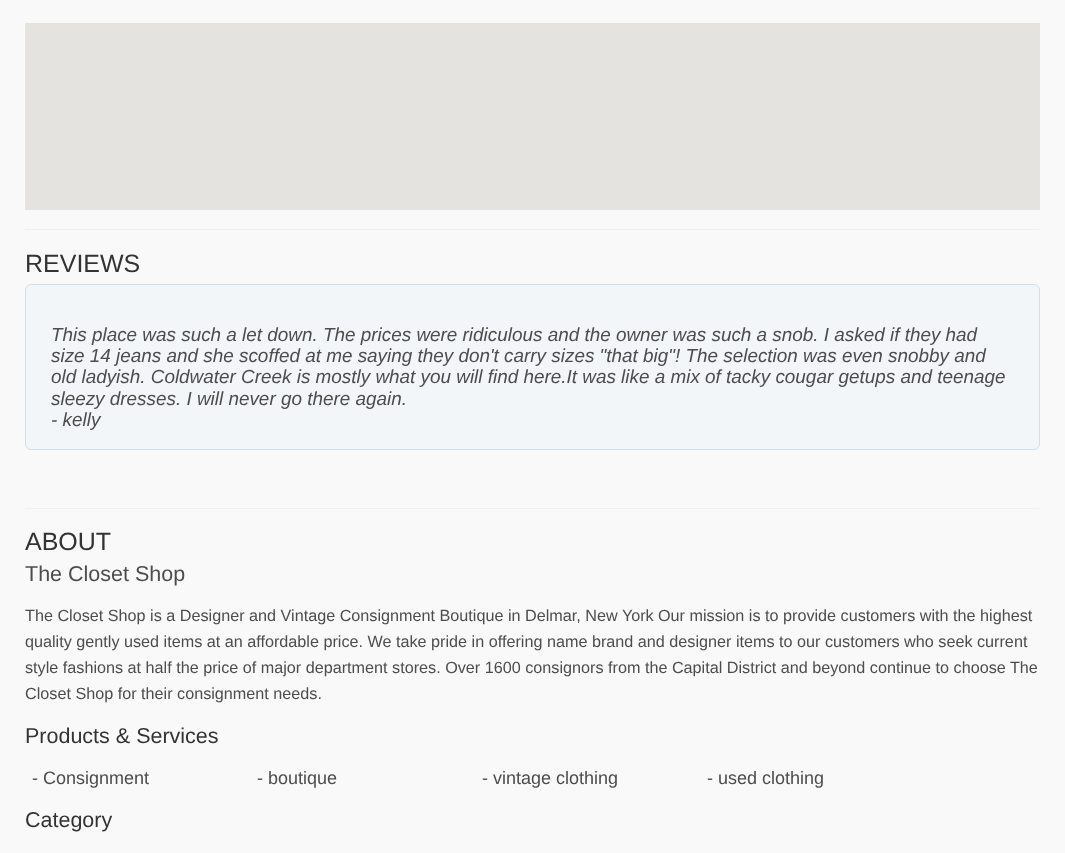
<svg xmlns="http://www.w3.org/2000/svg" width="1065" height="853">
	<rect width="100%" height="100%" fill="#F9F9F9" />
	<rect x="25" y="23" width="1015" height="187" fill="#E5E3DF" />
	<rect x="25" y="229" width="1015" height="1" fill="#F0F0F0" />
	<rect x="1039" y="229" width="1" height="1" fill="#F8F8F8" />
	<text x="25" y="272" font-family="Liberation Sans" font-size="25" fill="#333333">REVIEWS</text>
	<rect x="25.5" y="284.5" width="1014" height="165" rx="5.5" fill="#F2F6F8" stroke="#D2DFE7" />
	<g font-family="Liberation Sans" font-size="18.9" font-style="italic" fill="#4D4D4D">
		<text x="51" y="341">This place was such a let down. The prices were ridiculous and the owner was such a snob. I asked if they had</text>
		<text x="51" y="362">size 14 jeans and she scoffed at me saying they don't carry sizes "that big"! The selection was even snobby and</text>
		<text x="51" y="383">old ladyish. Coldwater Creek is mostly what you will find here.It was like a mix of tacky cougar getups and teenage</text>
		<text x="51" y="405">sleezy dresses. I will never go there again.</text>
		<text x="51" y="426">- kelly</text>
	</g>
	<rect x="25" y="508" width="1015" height="1" fill="#F0F0F0" />
	<rect x="1039" y="508" width="1" height="1" fill="#F8F8F8" />
	<text x="25" y="550" font-family="Liberation Sans" font-size="25" fill="#333333">ABOUT</text>
	<text x="25" y="581" font-family="Liberation Sans" font-size="21.5" fill="#4D4D4D">The Closet Shop</text>
	<g font-family="Liberation Sans" font-size="16.2" fill="#4D4D4D">
		<text x="25" y="621">The Closet Shop is a Designer and Vintage Consignment Boutique in Delmar, New York</text>
		<text x="658" y="621">Our mission is to provide customers with the highest</text>
		<text x="25" y="647">quality gently used items at an affordable price. We take pride in offering name brand and designer items to our customers who seek current</text>
		<text x="25" y="673">style fashions at half the price of major department stores. Over 1600 consignors from the Capital District and beyond continue to choose The</text>
		<text x="25" y="699">Closet Shop for their consignment needs.</text>
	</g>
	<text x="25" y="743" font-family="Liberation Sans" font-size="21.5" fill="#333333">Products &amp; Services</text>
	<g font-family="Liberation Sans" font-size="18" fill="#4D4D4D">
		<text x="32" y="784">- Consignment</text>
		<text x="257" y="784">- boutique</text>
		<text x="482" y="784">- vintage clothing</text>
		<text x="707" y="784">- used clothing</text>
	</g>
	<text x="25" y="827" font-family="Liberation Sans" font-size="21.5" fill="#333333">Category</text>
</svg>
